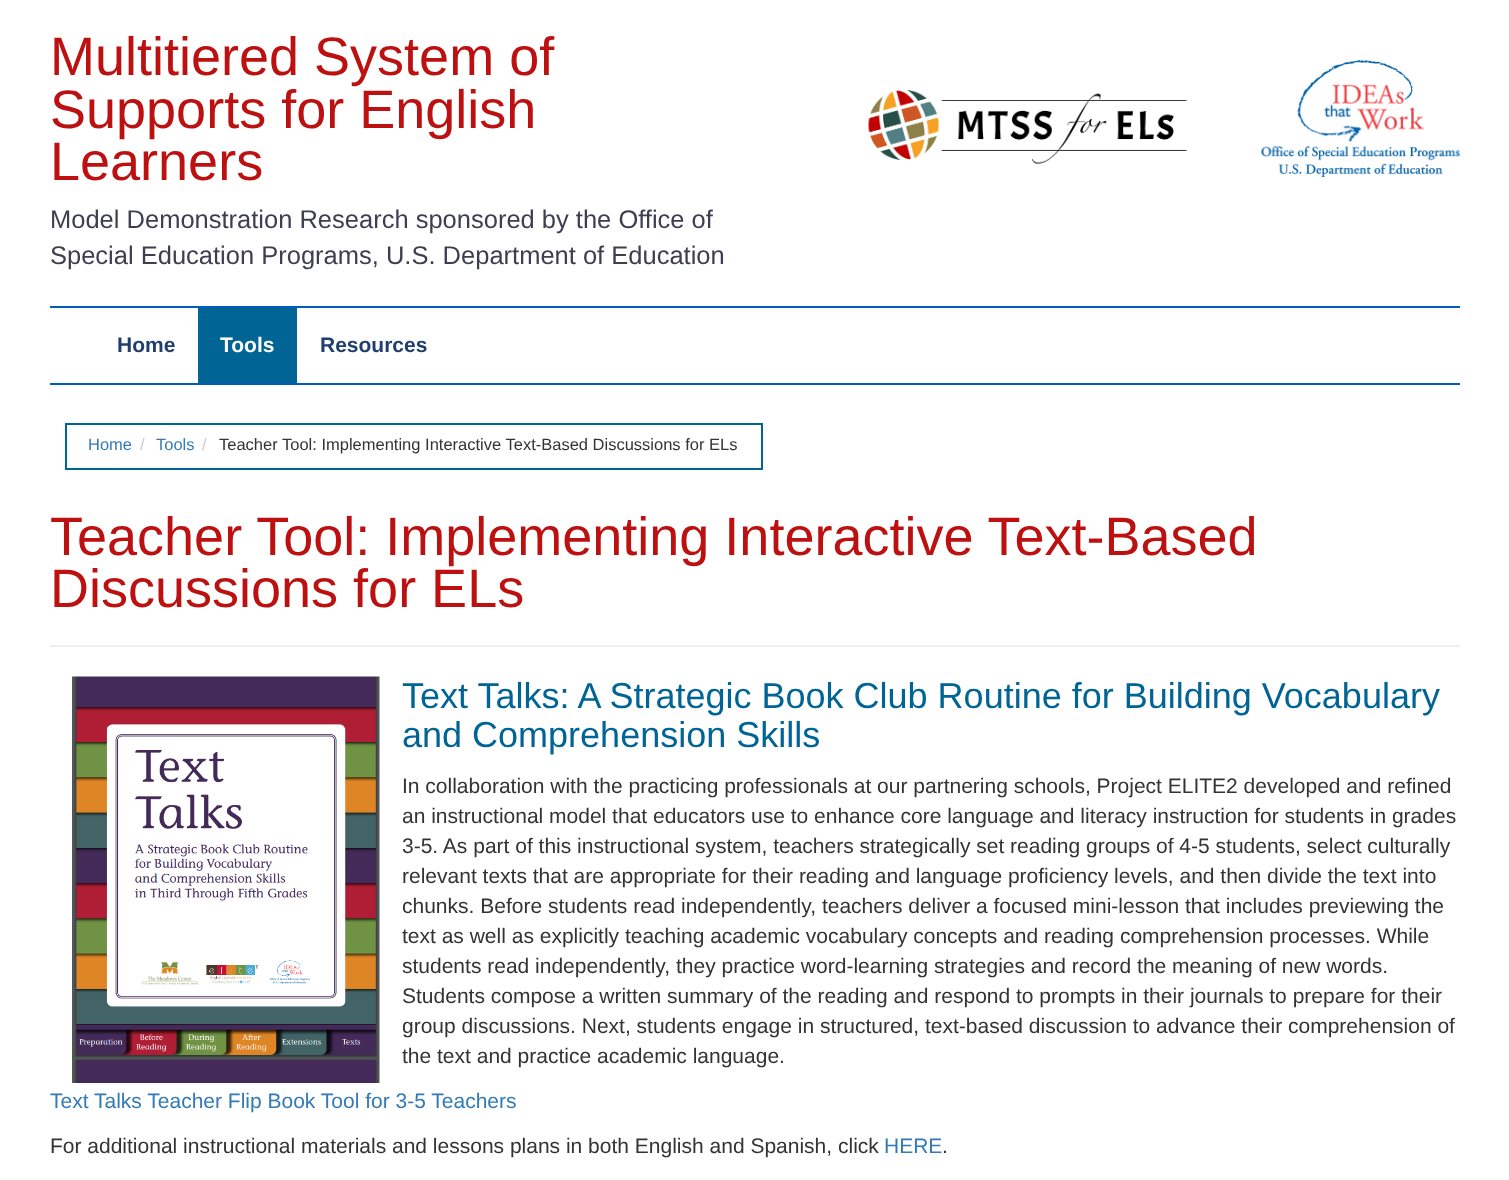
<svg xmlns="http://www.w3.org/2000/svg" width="1509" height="1180">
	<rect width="100%" height="100%" fill="#FFFFFF" />
	<g font-family="Liberation Sans" font-size="54" fill="#BD1010">
		<text x="50" y="75">Multitiered System of</text>
		<text x="50" y="128">Supports for English</text>
		<text x="50" y="180">Learners</text>
	</g>
	<g font-family="Liberation Sans" font-size="25.5" fill="#3E3E50">
		<text x="50" y="228">Model Demonstration Research sponsored by the Office of</text>
		<text x="50" y="264">Special Education Programs, U.S. Department of Education</text>
	</g>
	<image x="868" y="90" width="319" height="74" href="assets/img1.png" />
	<image x="1261" y="60" width="199" height="117" href="assets/img2.png" />
	<rect x="50" y="306" width="1410" height="2" fill="#005EBB" />
	<rect x="50" y="383" width="1410" height="2" fill="#005EBB" />
	<text x="117" y="352" font-family="Liberation Sans" font-size="21" font-weight="700" fill="#213E71">Home</text>
	<rect x="198" y="308" width="99" height="75" fill="#006495" />
	<text x="220" y="352" font-family="Liberation Sans" font-size="21" font-weight="700" fill="#FFFFFF">Tools</text>
	<text x="320" y="352" font-family="Liberation Sans" font-size="21" font-weight="700" fill="#213E71">Resources</text>
	<rect x="65" y="423" width="697" height="2" fill="#006495" />
	<rect x="65" y="468" width="130" height="2" fill="#006495" />
	<rect x="65" y="423" width="2" height="47" fill="#006495" />
	<text x="88" y="450" font-family="Liberation Sans" font-size="16.5" fill="#337AB7">Home</text>
	<text x="140" y="450" font-family="Liberation Sans" font-size="16.5" fill="#CCCCCC">/</text>
	<text x="156" y="450" font-family="Liberation Sans" font-size="16.5" fill="#337AB7">Tools</text>
	<rect x="761" y="423" width="2" height="47" fill="#006495" />
	<rect x="195" y="468" width="567" height="2" fill="#006495" />
	<text x="202" y="450" font-family="Liberation Sans" font-size="16.5" fill="#CCCCCC">/</text>
	<text x="219" y="450" font-family="Liberation Sans" font-size="16.5" fill="#333333">Teacher Tool: Implementing Interactive Text-Based Discussions for ELs</text>
	<g font-family="Liberation Sans" font-size="54" fill="#BD1010">
		<text x="50" y="555">Teacher Tool: Implementing Interactive Text-Based</text>
		<text x="50" y="607">Discussions for ELs</text>
	</g>
	<rect x="50" y="645" width="1410" height="2" fill="#EEEEEE" />
	<image x="72" y="676" width="308" height="407" href="assets/img3.png" />
	<g font-family="Liberation Sans" font-size="36" fill="#006495">
		<text x="402" y="708">Text Talks: A Strategic Book Club Routine for Building Vocabulary</text>
		<text x="402" y="747">and Comprehension Skills</text>
	</g>
	<g font-family="Liberation Sans" font-size="21" fill="#333333">
		<text x="402" y="793">In collaboration with the practicing professionals at our partnering schools, Project ELITE2 developed and refined</text>
		<text x="402" y="823">an instructional model that educators use to enhance core language and literacy instruction for students in grades</text>
		<text x="402" y="853">3-5. As part of this instructional system, teachers strategically set reading groups of 4-5 students, select culturally</text>
		<text x="402" y="883">relevant texts that are appropriate for their reading and language proficiency levels, and then divide the text into</text>
		<text x="402" y="913">chunks. Before students read independently, teachers deliver a focused mini-lesson that includes previewing the</text>
		<text x="402" y="943">text as well as explicitly teaching academic vocabulary concepts and reading comprehension processes. While</text>
		<text x="402" y="973">students read independently, they practice word-learning strategies and record the meaning of new words.</text>
		<text x="402" y="1003">Students compose a written summary of the reading and respond to prompts in their journals to prepare for their</text>
		<text x="402" y="1033">group discussions. Next, students engage in structured, text-based discussion to advance their comprehension of</text>
		<text x="402" y="1063">the text and practice academic language.</text>
	</g>
	<text x="50" y="1108" font-family="Liberation Sans" font-size="21" fill="#337AB7">Text Talks Teacher Flip Book Tool for 3-5 Teachers</text>
	<text x="50" y="1153" font-family="Liberation Sans" font-size="21" fill="#333333">For additional instructional materials and lessons plans in both English and Spanish, click</text>
	<text x="884" y="1153" font-family="Liberation Sans" font-size="21" fill="#337AB7">HERE</text>
	<text x="942" y="1153" font-family="Liberation Sans" font-size="21" fill="#333333">.</text>
</svg>
